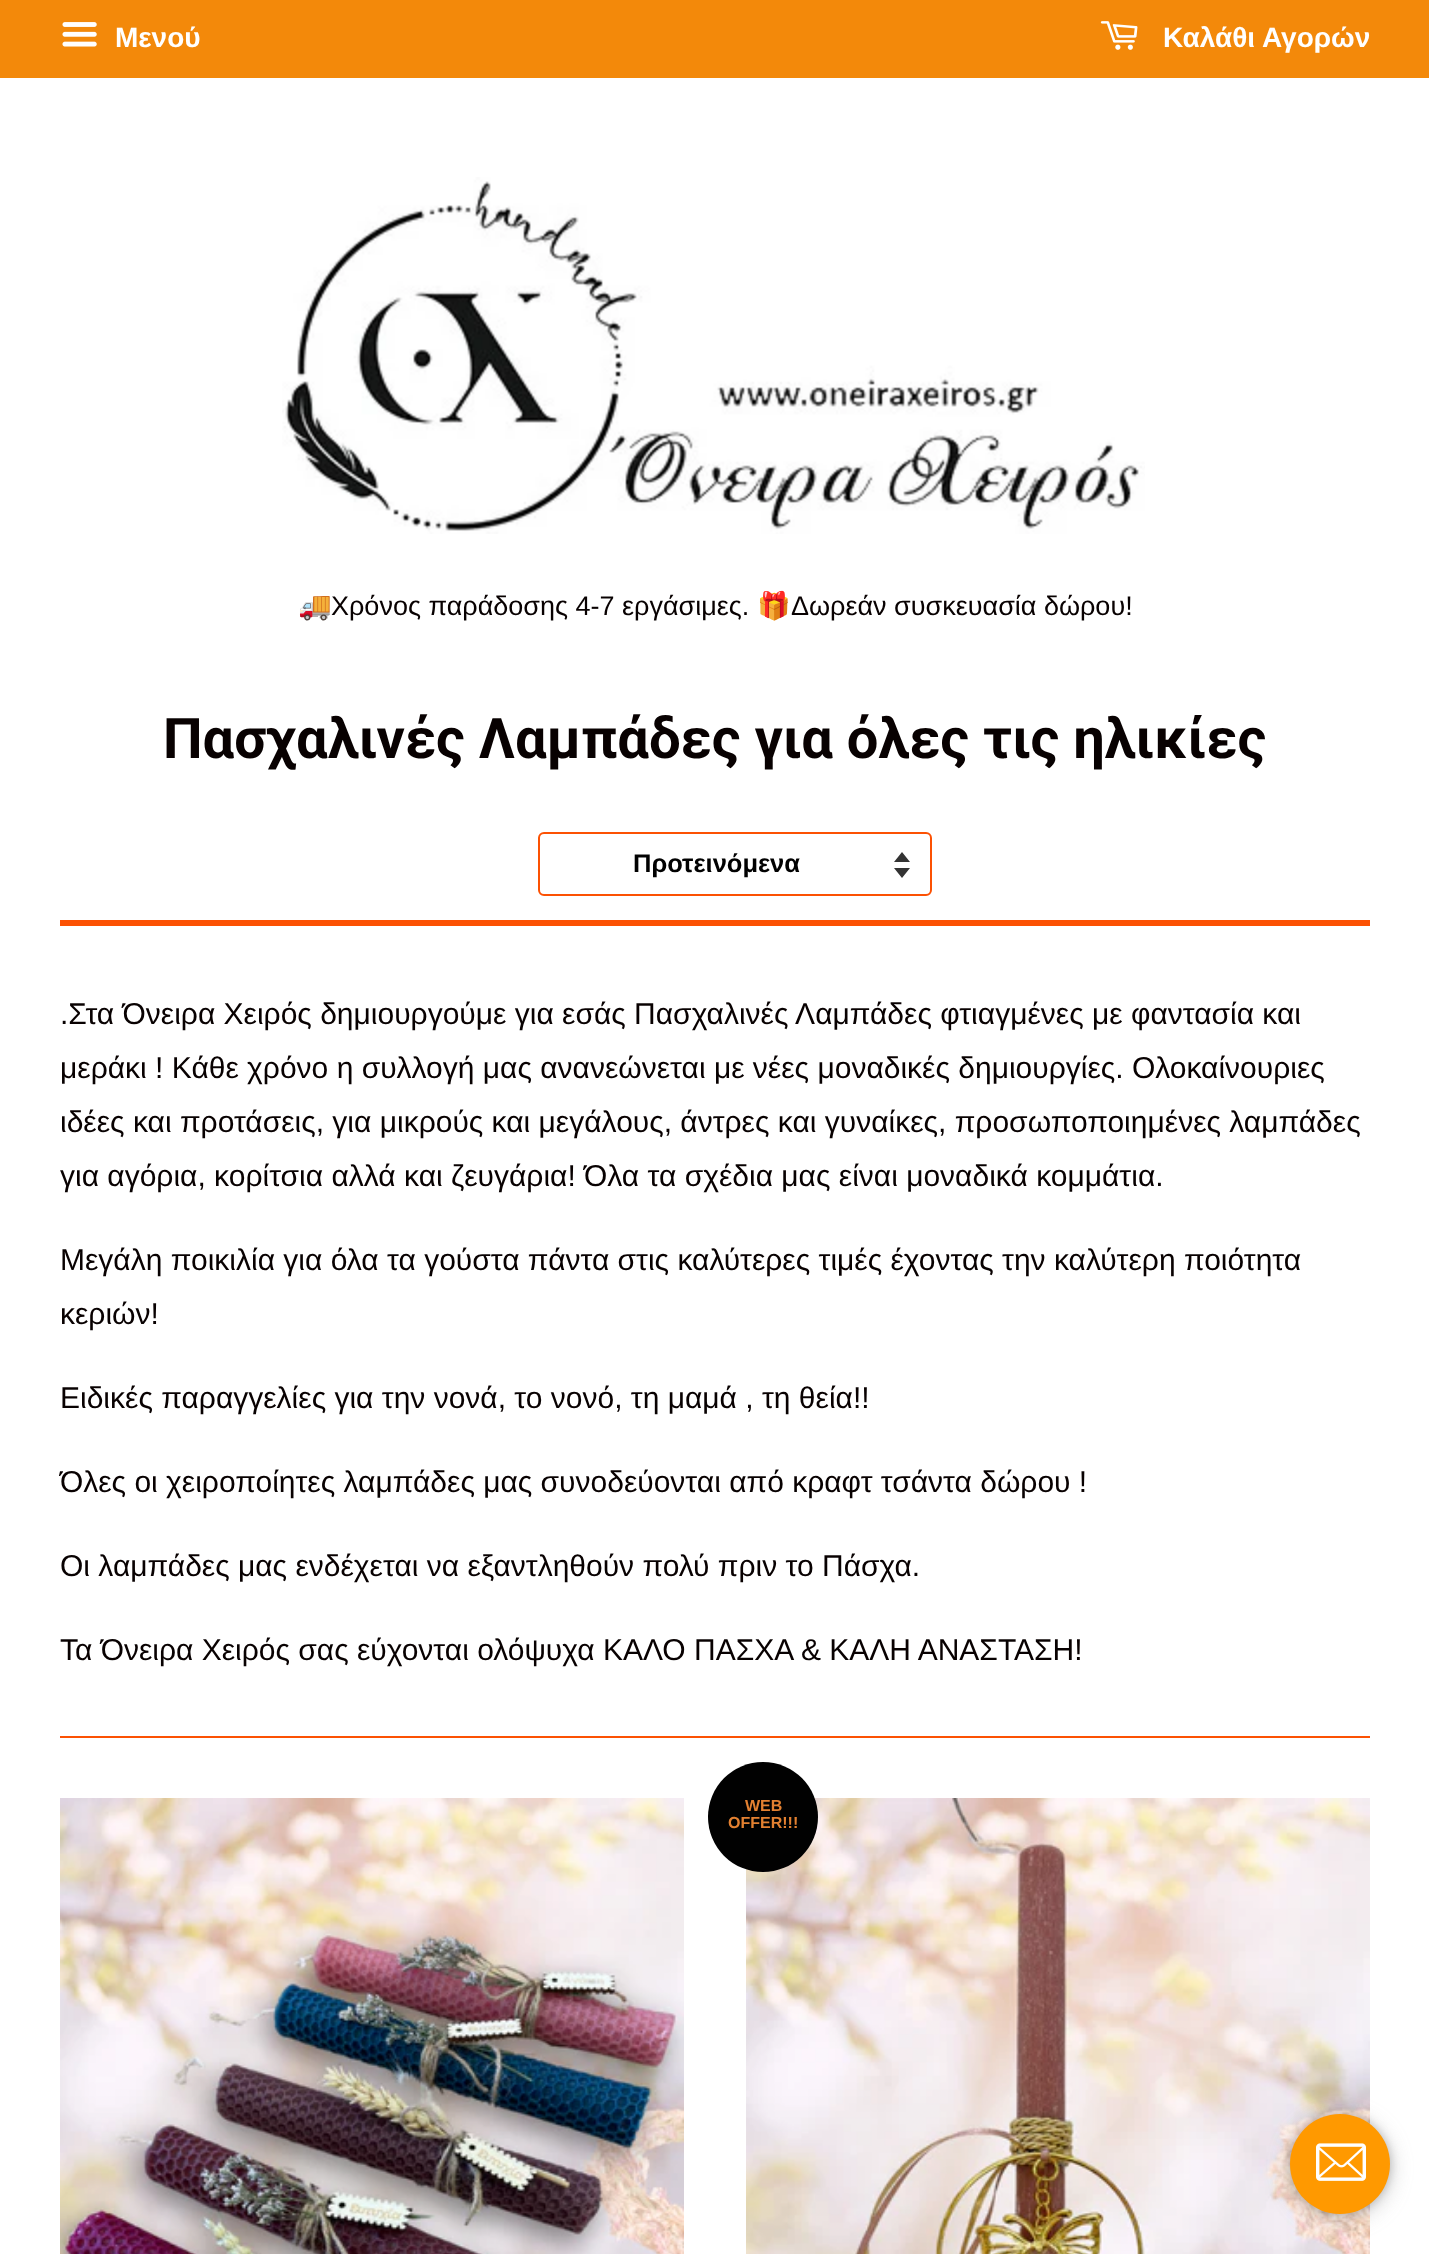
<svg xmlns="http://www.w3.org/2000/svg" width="1429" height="2254">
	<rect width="100%" height="100%" fill="#FFFFFF" />
	<rect x="0" y="0" width="1429" height="78" fill="#F3890A" />
	<image x="62" y="22" width="35" height="25" href="assets/img1.png" />
	<text x="115" y="47" font-family="Liberation Sans" font-size="28" font-weight="700" fill="#FFFFFF">Μενού</text>
	<image x="1100" y="21" width="38" height="29" href="assets/img2.png" />
	<text x="1163" y="47" font-family="Liberation Sans" font-size="28" font-weight="700" fill="#FFFFFF">Καλάθι Αγορών</text>
	<image x="282" y="177" width="863" height="357" href="assets/img3.png" />
	<text x="298" y="615" font-family="Noto Color Emoji" font-size="27" fill="#080101">🚚</text>
	<text x="331" y="615" font-family="Liberation Sans" font-size="27" fill="#080101">Χρόνος παράδοσης 4-7 εργάσιμες.</text>
	<text x="757" y="615" font-family="Noto Color Emoji" font-size="27" fill="#080101">🎁</text>
	<text x="791" y="615" font-family="Liberation Sans" font-size="27" fill="#080101">Δωρεάν συσκευασία δώρου!</text>
	<rect x="60" y="920" width="1310" height="6" fill="#FC5103" />
	<text x="163" y="758" font-family="Roboto" font-size="56" font-weight="700" fill="#080101">Πασχαλινές Λαμπάδες για όλες τις ηλικίες</text>
	<path d="M894 868L902 878L910 868ZM902 852L894 862H910Z" fill="#333333" />
	<rect x="539" y="833" width="392" height="62" rx="5" fill="none" stroke="#FC5103" stroke-width="2" />
	<text x="633" y="872" font-family="Liberation Sans" font-size="25.5" font-weight="700" fill="#010101">Προτεινόμενα</text>
	<g font-family="Liberation Sans" font-size="30" fill="#080101">
		<text x="60" y="1024">.Στα Όνειρα Χειρός δημιουργούμε για εσάς Πασχαλινές Λαμπάδες φτιαγμένες με φαντασία και</text>
		<text x="60" y="1078">μεράκι ! Κάθε χρόνο η συλλογή μας ανανεώνεται με νέες μοναδικές δημιουργίες. Oλοκαίνουριες</text>
		<text x="60" y="1132">ιδέες και προτάσεις, για μικρούς και μεγάλους, άντρες και γυναίκες, προσωποποιημένες λαμπάδες</text>
		<text x="60" y="1186">για αγόρια, κορίτσια αλλά και ζευγάρια! Όλα τα σχέδια μας είναι μοναδικά κομμάτια.</text>
		<text x="60" y="1270">Μεγάλη ποικιλία για όλα τα γούστα πάντα στις καλύτερες τιμές έχοντας την καλύτερη ποιότητα</text>
		<text x="60" y="1324">κεριών!</text>
		<text x="60" y="1408">Ειδικές παραγγελίες για την νονά, το νονό, τη μαμά , τη θεία!!</text>
		<text x="60" y="1492">Όλες οι χειροποίητες λαμπάδες μας συνοδεύονται από κραφτ τσάντα δώρου !</text>
		<text x="60" y="1576">Οι λαμπάδες μας ενδέχεται να εξαντληθούν πολύ πριν το Πάσχα.</text>
		<text x="60" y="1660">Τα Όνειρα Χειρός σας εύχονται ολόψυχα ΚΑΛΟ ΠΑΣΧΑ &amp; ΚΑΛΗ ΑΝΑΣΤΑΣΗ!</text>
	</g>
	<rect x="60" y="1736" width="1310" height="2" fill="#FC5103" />
	<image x="60" y="1798" width="624" height="456" href="assets/img4.png" />
	<image x="746" y="1798" width="624" height="456" href="assets/img5.png" />
	<circle cx="763" cy="1817" r="55" fill="#010101" />
	<g font-family="Liberation Sans" font-size="16" font-weight="700" fill="#E28031">
		<text x="745" y="1811">WEB</text>
		<text x="728" y="1828">OFFER!!!</text>
	</g>
	<rect x="1290" y="2118" width="100" height="100" rx="50" fill="#808080" fill-opacity="0.4" filter="blur(11px)" />
	<path d="M1342 2116C1354 2116 1365 2120 1374 2127C1354 2109 1323 2110 1305 2129C1286 2147 1285 2178 1303 2198C1277 2166 1299 2116 1342 2116Z" fill="#FFFFFF" fill-opacity="0.15" />
	<rect x="1290" y="2114" width="100" height="100" rx="50" fill="#000000" fill-opacity="0.2" filter="blur(5px)" />
	<circle cx="1340" cy="2164" r="50" fill="#FF9900" />
	<image x="1316" y="2143" width="50" height="38" href="assets/img6.png" />
</svg>
